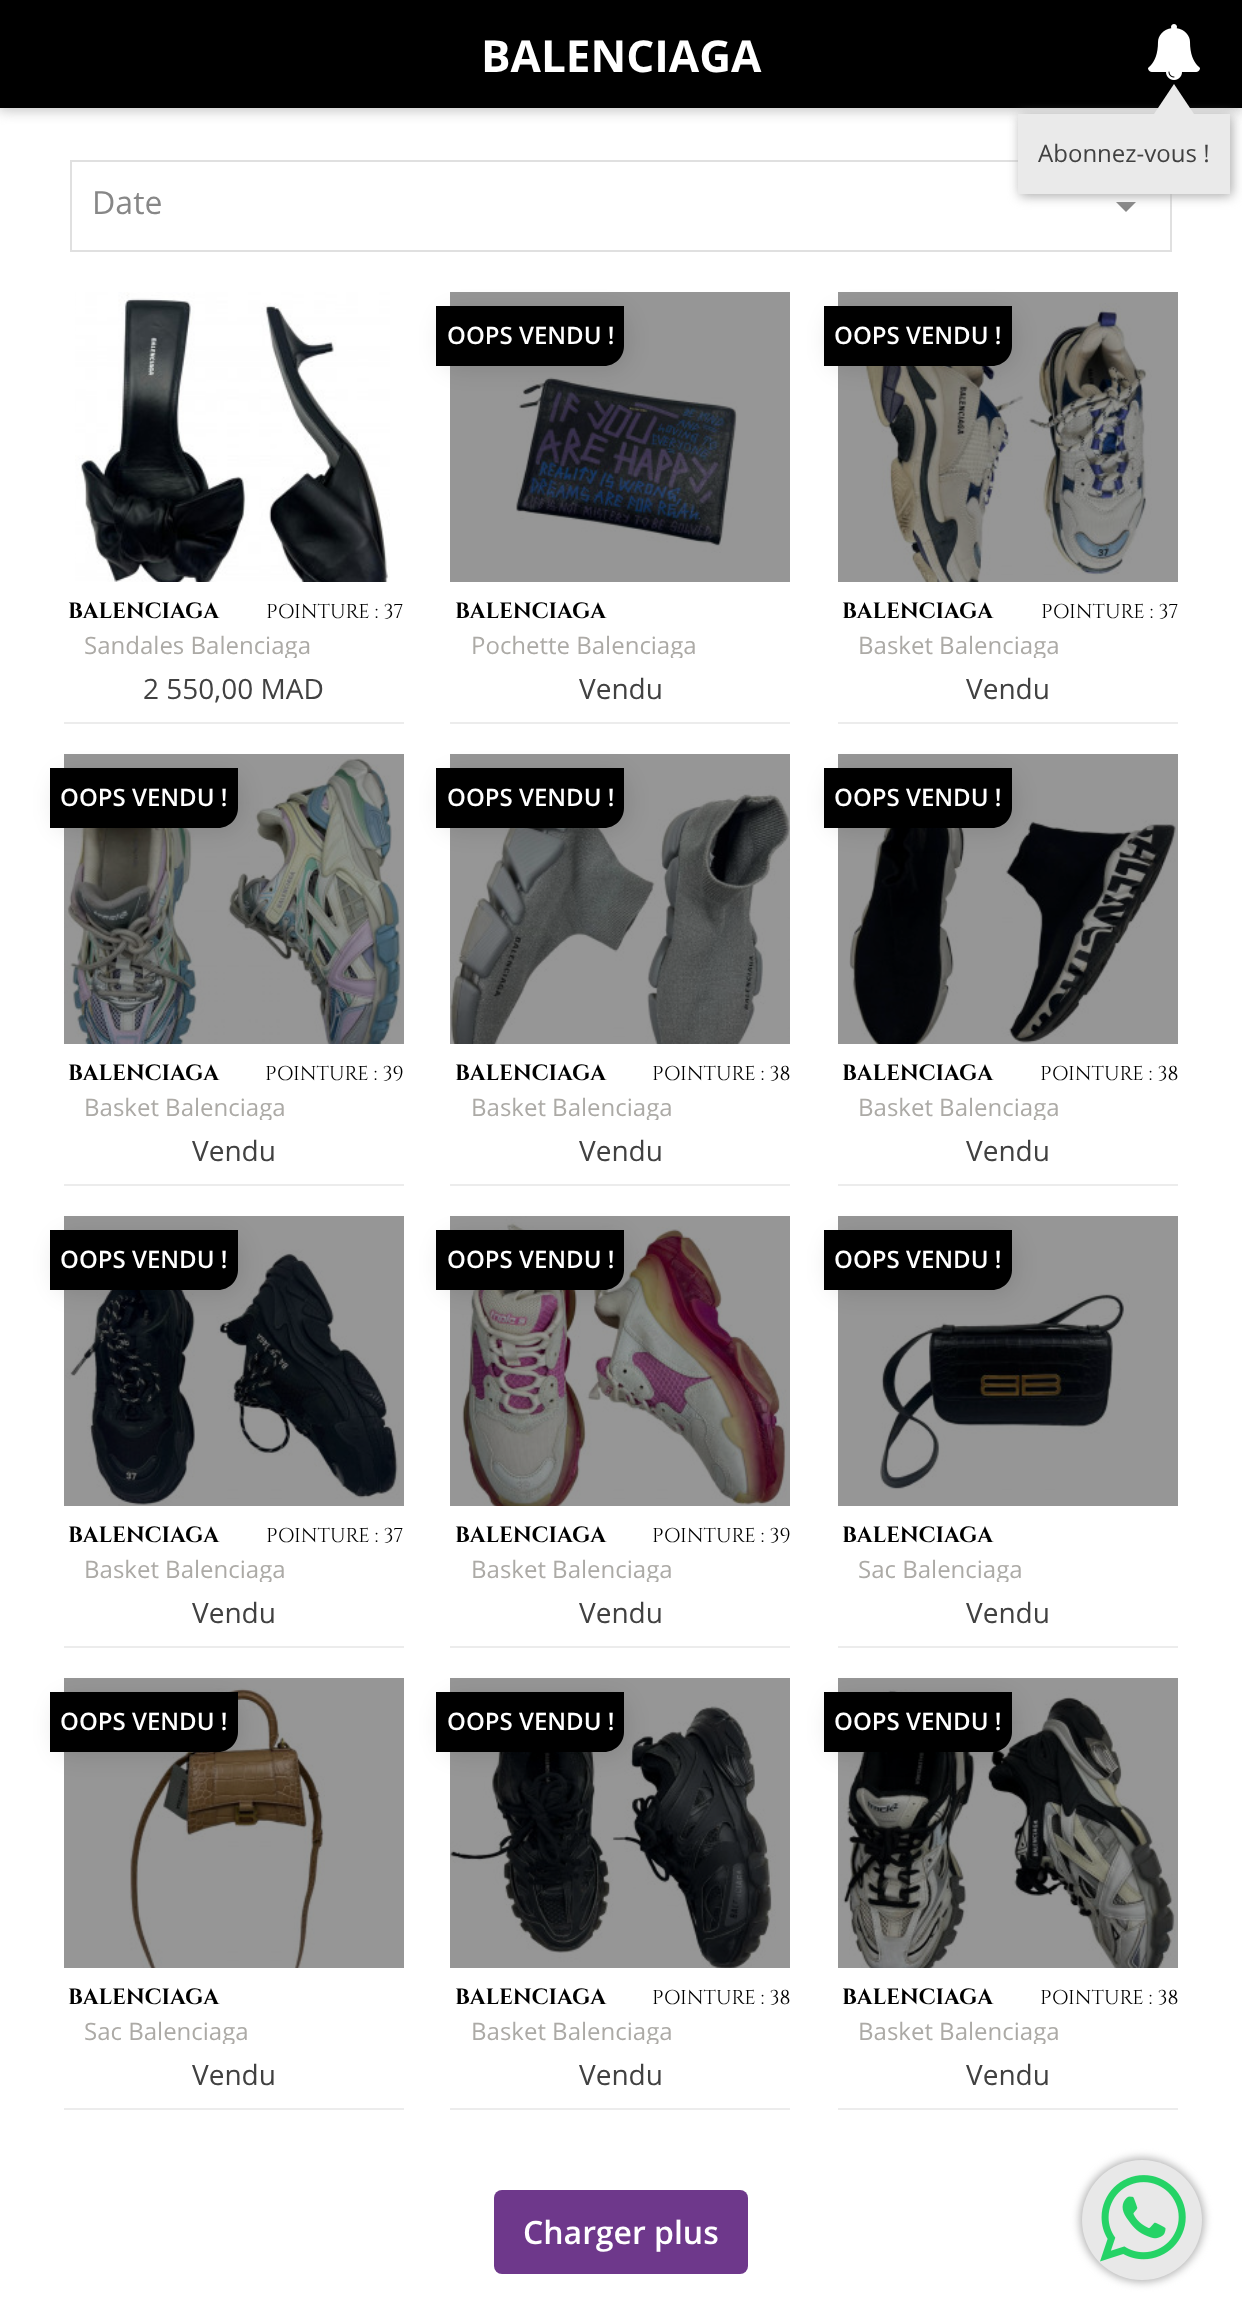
<svg xmlns="http://www.w3.org/2000/svg" width="1242" height="2309">
	<defs>
		<clipPath id="clip1"><rect x="84" y="632" width="320" height="26" /></clipPath>
		<clipPath id="clip2"><rect x="470" y="632" width="320" height="26" /></clipPath>
		<clipPath id="clip3"><rect x="858" y="632" width="320" height="26" /></clipPath>
		<clipPath id="clip4"><rect x="84" y="1094" width="320" height="26" /></clipPath>
		<clipPath id="clip5"><rect x="470" y="1094" width="320" height="26" /></clipPath>
		<clipPath id="clip6"><rect x="858" y="1094" width="320" height="26" /></clipPath>
		<clipPath id="clip7"><rect x="84" y="1556" width="320" height="26" /></clipPath>
		<clipPath id="clip8"><rect x="470" y="1556" width="320" height="26" /></clipPath>
		<clipPath id="clip9"><rect x="858" y="1556" width="320" height="26" /></clipPath>
		<clipPath id="clip10"><rect x="84" y="2018" width="320" height="26" /></clipPath>
		<clipPath id="clip11"><rect x="470" y="2018" width="320" height="26" /></clipPath>
		<clipPath id="clip12"><rect x="858" y="2018" width="320" height="26" /></clipPath>
	</defs>
	<rect width="100%" height="100%" fill="#FFFFFF" />
	<rect x="838" y="1678" width="340" height="290" fill="#969696" />
	<rect x="450" y="1678" width="340" height="290" fill="#969696" />
	<rect x="64" y="1678" width="340" height="290" fill="#969696" />
	<rect x="838" y="1216" width="340" height="290" fill="#969696" />
	<rect x="450" y="1216" width="340" height="290" fill="#969696" />
	<rect x="64" y="1216" width="340" height="290" fill="#969696" />
	<rect x="838" y="754" width="340" height="290" fill="#969696" />
	<rect x="450" y="754" width="340" height="20" fill="#969696" />
	<rect x="64" y="754" width="340" height="290" fill="#969696" />
	<rect x="838" y="292" width="340" height="290" fill="#969696" />
	<rect x="450" y="292" width="340" height="290" fill="#969696" />
	<rect x="-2" y="-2" width="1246" height="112" fill="#BFBFBF" filter="blur(7px)" />
	<rect x="0" y="0" width="1242" height="108" fill="#000000" />
	<text x="481" y="72" font-family="Open Sans" font-size="44" font-weight="700" fill="#FFFFFF">BALENCIAGA</text>
	<image x="1148" y="24" width="52" height="56" href="assets/img1.png" />
	<rect x="71" y="161" width="1100" height="90" fill="none" stroke="#E0E0E0" stroke-width="2" />
	<path d="M1116 202H1136L1126 212Z" fill="#878787" />
	<rect x="1020" y="116" width="212" height="80" fill="#A9A9A9" filter="blur(6px)" />
	<rect x="1018" y="114" width="212" height="80" fill="#EAEAEA" />
	<path d="M1194 114H1154L1174 84Z" fill="#EAEAEA" />
	<text x="1038" y="162" font-family="Open Sans" font-size="24" fill="#414141">Abonnez-vous !</text>
	<text x="92" y="214" font-family="Open Sans" font-size="32" fill="#878787">Date</text>
	<rect x="64" y="722" width="340" height="2" fill="#ECECEC" />
	<image x="75" y="292" width="315" height="290" href="assets/img2.png" />
	<text x="68" y="618" font-family="Cinzel" font-size="22" font-weight="700" fill="#000000">BALENCIAGA</text>
	<text x="266" y="618" font-family="Cinzel" font-size="20" fill="#000000">POINTURE : 37</text>
	<g clip-path="url(#clip1)">
		<text x="84" y="654" font-family="Open Sans" font-size="24" fill="#ACAAA6">Sandales Balenciaga</text>
	</g>
	<text x="143" y="699" font-family="Open Sans" font-size="28" fill="#414141">2 550,00 MAD</text>
	<rect x="450" y="722" width="340" height="2" fill="#ECECEC" />
	<image x="516" y="377" width="222" height="176" href="assets/img3.png" />
	<rect x="440" y="310" width="188" height="60" rx="20" fill="#000000" fill-opacity="0.1" filter="blur(11px)" />
	<path d="M436 306H624V346C624 357 615 366 604 366H436Z" fill="#000000" />
	<text x="447" y="344" font-family="Open Sans" font-size="24" font-weight="600" fill="#FFFFFF">OOPS VENDU !</text>
	<text x="455" y="618" font-family="Cinzel" font-size="22" font-weight="700" fill="#000000">BALENCIAGA</text>
	<g clip-path="url(#clip2)">
		<text x="471" y="654" font-family="Open Sans" font-size="24" fill="#ACAAA6">Pochette Balenciaga</text>
	</g>
	<text x="579" y="699" font-family="Open Sans" font-size="28" fill="#414141">Vendu</text>
	<rect x="838" y="722" width="340" height="2" fill="#ECECEC" />
	<image x="860" y="303" width="292" height="279" href="assets/img4.png" />
	<rect x="828" y="310" width="188" height="60" rx="20" fill="#000000" fill-opacity="0.1" filter="blur(11px)" />
	<path d="M824 306H1012V346C1012 357 1003 366 992 366H824Z" fill="#000000" />
	<text x="834" y="344" font-family="Open Sans" font-size="24" font-weight="600" fill="#FFFFFF">OOPS VENDU !</text>
	<text x="842" y="618" font-family="Cinzel" font-size="22" font-weight="700" fill="#000000">BALENCIAGA</text>
	<text x="1041" y="618" font-family="Cinzel" font-size="20" fill="#000000">POINTURE : 37</text>
	<g clip-path="url(#clip3)">
		<text x="858" y="654" font-family="Open Sans" font-size="24" fill="#ACAAA6">Basket Balenciaga</text>
	</g>
	<text x="966" y="699" font-family="Open Sans" font-size="28" fill="#414141">Vendu</text>
	<rect x="64" y="1184" width="340" height="2" fill="#ECECEC" />
	<image x="64" y="756" width="337" height="288" href="assets/img5.png" />
	<rect x="54" y="772" width="188" height="60" rx="20" fill="#000000" fill-opacity="0.1" filter="blur(11px)" />
	<path d="M50 768H238V808C238 819 229 828 218 828H50Z" fill="#000000" />
	<text x="60" y="806" font-family="Open Sans" font-size="24" font-weight="600" fill="#FFFFFF">OOPS VENDU !</text>
	<text x="68" y="1080" font-family="Cinzel" font-size="22" font-weight="700" fill="#000000">BALENCIAGA</text>
	<text x="265" y="1080" font-family="Cinzel" font-size="20" fill="#000000">POINTURE : 39</text>
	<g clip-path="url(#clip4)">
		<text x="84" y="1116" font-family="Open Sans" font-size="24" fill="#ACAAA6">Basket Balenciaga</text>
	</g>
	<text x="192" y="1161" font-family="Open Sans" font-size="28" fill="#414141">Vendu</text>
	<rect x="450" y="1184" width="340" height="2" fill="#ECECEC" />
	<image x="450" y="774" width="340" height="270" href="assets/img6.png" />
	<rect x="440" y="772" width="188" height="60" rx="20" fill="#000000" fill-opacity="0.1" filter="blur(11px)" />
	<path d="M436 768H624V808C624 819 615 828 604 828H436Z" fill="#000000" />
	<text x="447" y="806" font-family="Open Sans" font-size="24" font-weight="600" fill="#FFFFFF">OOPS VENDU !</text>
	<text x="455" y="1080" font-family="Cinzel" font-size="22" font-weight="700" fill="#000000">BALENCIAGA</text>
	<text x="652" y="1080" font-family="Cinzel" font-size="20" fill="#000000">POINTURE : 38</text>
	<g clip-path="url(#clip5)">
		<text x="471" y="1116" font-family="Open Sans" font-size="24" fill="#ACAAA6">Basket Balenciaga</text>
	</g>
	<text x="579" y="1161" font-family="Open Sans" font-size="28" fill="#414141">Vendu</text>
	<rect x="838" y="1184" width="340" height="2" fill="#ECECEC" />
	<image x="849" y="788" width="327" height="256" href="assets/img7.png" />
	<rect x="828" y="772" width="188" height="60" rx="20" fill="#000000" fill-opacity="0.1" filter="blur(11px)" />
	<path d="M824 768H1012V808C1012 819 1003 828 992 828H824Z" fill="#000000" />
	<text x="834" y="806" font-family="Open Sans" font-size="24" font-weight="600" fill="#FFFFFF">OOPS VENDU !</text>
	<text x="842" y="1080" font-family="Cinzel" font-size="22" font-weight="700" fill="#000000">BALENCIAGA</text>
	<text x="1040" y="1080" font-family="Cinzel" font-size="20" fill="#000000">POINTURE : 38</text>
	<g clip-path="url(#clip6)">
		<text x="858" y="1116" font-family="Open Sans" font-size="24" fill="#ACAAA6">Basket Balenciaga</text>
	</g>
	<text x="966" y="1161" font-family="Open Sans" font-size="28" fill="#414141">Vendu</text>
	<rect x="64" y="1646" width="340" height="2" fill="#ECECEC" />
	<image x="65" y="1249" width="335" height="257" href="assets/img8.png" />
	<rect x="54" y="1234" width="188" height="60" rx="20" fill="#000000" fill-opacity="0.1" filter="blur(11px)" />
	<path d="M50 1230H238V1270C238 1281 229 1290 218 1290H50Z" fill="#000000" />
	<text x="60" y="1268" font-family="Open Sans" font-size="24" font-weight="600" fill="#FFFFFF">OOPS VENDU !</text>
	<text x="68" y="1542" font-family="Cinzel" font-size="22" font-weight="700" fill="#000000">BALENCIAGA</text>
	<text x="266" y="1542" font-family="Cinzel" font-size="20" fill="#000000">POINTURE : 37</text>
	<g clip-path="url(#clip7)">
		<text x="84" y="1578" font-family="Open Sans" font-size="24" fill="#ACAAA6">Basket Balenciaga</text>
	</g>
	<text x="192" y="1623" font-family="Open Sans" font-size="28" fill="#414141">Vendu</text>
	<rect x="450" y="1646" width="340" height="2" fill="#ECECEC" />
	<image x="461" y="1216" width="326" height="290" href="assets/img9.png" />
	<rect x="440" y="1234" width="188" height="60" rx="20" fill="#000000" fill-opacity="0.1" filter="blur(11px)" />
	<path d="M436 1230H624V1270C624 1281 615 1290 604 1290H436Z" fill="#000000" />
	<text x="447" y="1268" font-family="Open Sans" font-size="24" font-weight="600" fill="#FFFFFF">OOPS VENDU !</text>
	<text x="455" y="1542" font-family="Cinzel" font-size="22" font-weight="700" fill="#000000">BALENCIAGA</text>
	<text x="652" y="1542" font-family="Cinzel" font-size="20" fill="#000000">POINTURE : 39</text>
	<g clip-path="url(#clip8)">
		<text x="471" y="1578" font-family="Open Sans" font-size="24" fill="#ACAAA6">Basket Balenciaga</text>
	</g>
	<text x="579" y="1623" font-family="Open Sans" font-size="28" fill="#414141">Vendu</text>
	<rect x="838" y="1646" width="340" height="2" fill="#ECECEC" />
	<image x="880" y="1293" width="250" height="197" href="assets/img10.png" />
	<rect x="828" y="1234" width="188" height="60" rx="20" fill="#000000" fill-opacity="0.1" filter="blur(11px)" />
	<path d="M824 1230H1012V1270C1012 1281 1003 1290 992 1290H824Z" fill="#000000" />
	<text x="834" y="1268" font-family="Open Sans" font-size="24" font-weight="600" fill="#FFFFFF">OOPS VENDU !</text>
	<text x="842" y="1542" font-family="Cinzel" font-size="22" font-weight="700" fill="#000000">BALENCIAGA</text>
	<g clip-path="url(#clip9)">
		<text x="858" y="1578" font-family="Open Sans" font-size="24" fill="#ACAAA6">Sac Balenciaga</text>
	</g>
	<text x="966" y="1623" font-family="Open Sans" font-size="28" fill="#414141">Vendu</text>
	<rect x="64" y="2108" width="340" height="2" fill="#ECECEC" />
	<image x="129" y="1688" width="196" height="280" href="assets/img11.png" />
	<rect x="54" y="1696" width="188" height="60" rx="20" fill="#000000" fill-opacity="0.1" filter="blur(11px)" />
	<path d="M50 1692H238V1732C238 1743 229 1752 218 1752H50Z" fill="#000000" />
	<text x="60" y="1730" font-family="Open Sans" font-size="24" font-weight="600" fill="#FFFFFF">OOPS VENDU !</text>
	<text x="68" y="2004" font-family="Cinzel" font-size="22" font-weight="700" fill="#000000">BALENCIAGA</text>
	<g clip-path="url(#clip10)">
		<text x="84" y="2040" font-family="Open Sans" font-size="24" fill="#ACAAA6">Sac Balenciaga</text>
	</g>
	<text x="192" y="2085" font-family="Open Sans" font-size="28" fill="#414141">Vendu</text>
	<rect x="450" y="2108" width="340" height="2" fill="#ECECEC" />
	<image x="450" y="1700" width="326" height="268" href="assets/img12.png" />
	<rect x="440" y="1696" width="188" height="60" rx="20" fill="#000000" fill-opacity="0.1" filter="blur(11px)" />
	<path d="M436 1692H624V1732C624 1743 615 1752 604 1752H436Z" fill="#000000" />
	<text x="447" y="1730" font-family="Open Sans" font-size="24" font-weight="600" fill="#FFFFFF">OOPS VENDU !</text>
	<text x="455" y="2004" font-family="Cinzel" font-size="22" font-weight="700" fill="#000000">BALENCIAGA</text>
	<text x="652" y="2004" font-family="Cinzel" font-size="20" fill="#000000">POINTURE : 38</text>
	<g clip-path="url(#clip11)">
		<text x="471" y="2040" font-family="Open Sans" font-size="24" fill="#ACAAA6">Basket Balenciaga</text>
	</g>
	<text x="579" y="2085" font-family="Open Sans" font-size="28" fill="#414141">Vendu</text>
	<rect x="838" y="2108" width="340" height="2" fill="#ECECEC" />
	<image x="838" y="1689" width="338" height="279" href="assets/img13.png" />
	<rect x="828" y="1696" width="188" height="60" rx="20" fill="#000000" fill-opacity="0.1" filter="blur(11px)" />
	<path d="M824 1692H1012V1732C1012 1743 1003 1752 992 1752H824Z" fill="#000000" />
	<text x="834" y="1730" font-family="Open Sans" font-size="24" font-weight="600" fill="#FFFFFF">OOPS VENDU !</text>
	<text x="842" y="2004" font-family="Cinzel" font-size="22" font-weight="700" fill="#000000">BALENCIAGA</text>
	<text x="1040" y="2004" font-family="Cinzel" font-size="20" fill="#000000">POINTURE : 38</text>
	<g clip-path="url(#clip12)">
		<text x="858" y="2040" font-family="Open Sans" font-size="24" fill="#ACAAA6">Basket Balenciaga</text>
	</g>
	<text x="966" y="2085" font-family="Open Sans" font-size="28" fill="#414141">Vendu</text>
	<rect x="494" y="2190" width="254" height="84" rx="8" fill="#6E388B" />
	<text x="523" y="2244" font-family="Open Sans" font-size="32" font-weight="600" fill="#FFFFFF">Charger plus</text>
	<rect x="1080" y="2158" width="124" height="124" rx="62" fill="#B1B1B1" filter="blur(4px)" />
	<circle cx="1142" cy="2220" r="60" fill="#E8E8E8" />
	<image x="1100" y="2175" width="86" height="87" href="assets/img14.png" />
</svg>
